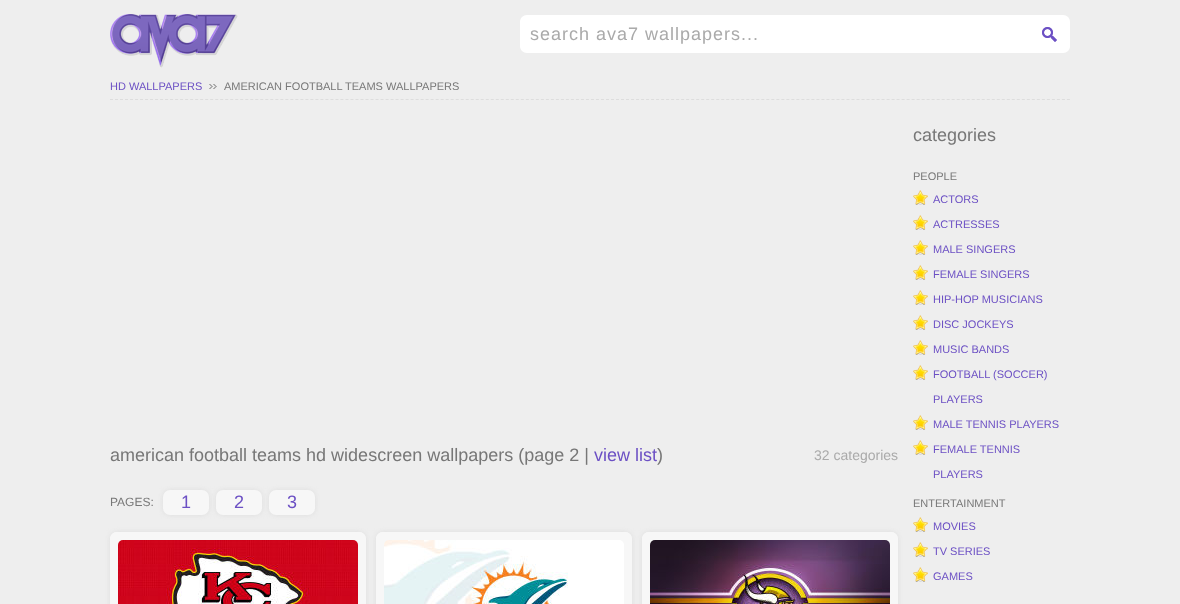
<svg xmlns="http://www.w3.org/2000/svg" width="1180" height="604">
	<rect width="100%" height="100%" fill="#EEEEEE" />
	<image x="110" y="14" width="128" height="54" href="assets/img1.png" />
	<path d="M527 15H1030V53H527C523 53 520 50 520 46V22C520 18 523 15 527 15Z" fill="#FFFFFF" />
	<text x="530" y="40" font-family="Liberation Sans" font-size="18" letter-spacing="1" fill="#AAAAAA">search ava7 wallpapers...</text>
	<path d="M1030 15H1063C1067 15 1070 18 1070 22V46C1070 50 1067 53 1063 53H1030Z" fill="#FFFFFF" />
	<image x="1042" y="27" width="15" height="15" href="assets/img2.png" />
	<path d="M110 99.5H1070" fill="none" stroke="#DDDDDD" stroke-dasharray="3 2.01" />
	<text x="110" y="90" font-family="Liberation Sans" font-size="11" fill="#6C50C4">HD WALLPAPERS</text>
	<image x="209" y="84" width="8" height="5" href="assets/img3.png" />
	<text x="224" y="90" font-family="Liberation Sans" font-size="11" fill="#777777">AMERICAN FOOTBALL TEAMS WALLPAPERS</text>
	<text x="110" y="461" font-family="Liberation Sans" font-size="18" fill="#777777">american football teams hd widescreen wallpapers (page 2 |</text>
	<text x="594" y="461" font-family="Liberation Sans" font-size="18" fill="#6C50C4">view list</text>
	<text x="657" y="461" font-family="Liberation Sans" font-size="18" fill="#777777">)</text>
	<text x="814" y="460" font-family="Liberation Sans" font-size="14" fill="#AAAAAA">32 categories</text>
	<text x="110" y="506" font-family="Liberation Sans" font-size="12" fill="#777777">PAGES:</text>
	<rect x="163" y="490" width="46" height="25" rx="7" fill="#DDDDDD" filter="blur(2.5px)" />
	<rect x="163" y="490" width="46" height="25" rx="7" fill="#F7F7F7" />
	<text x="181" y="508" font-family="Liberation Sans" font-size="18" fill="#6C50C4">1</text>
	<rect x="216" y="490" width="46" height="25" rx="7" fill="#DDDDDD" filter="blur(2.5px)" />
	<rect x="216" y="490" width="46" height="25" rx="7" fill="#F7F7F7" />
	<text x="234" y="508" font-family="Liberation Sans" font-size="18" fill="#6C50C4">2</text>
	<rect x="269" y="490" width="46" height="25" rx="7" fill="#DDDDDD" filter="blur(2.5px)" />
	<rect x="269" y="490" width="46" height="25" rx="7" fill="#F7F7F7" />
	<text x="287" y="508" font-family="Liberation Sans" font-size="18" fill="#6C50C4">3</text>
	<rect x="110" y="532" width="256" height="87" rx="7" fill="#DDDDDD" filter="blur(2.5px)" />
	<rect x="110" y="532" width="256" height="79" rx="7" fill="#F7F7F7" />
	<path d="M117 532C113 532 110 535 110 539V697C110 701 113 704 117 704H359C363 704 366 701 366 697V539C366 535 363 532 359 532ZM118 540V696H358V540Z" fill="#F7F7F7" fill-rule="evenodd" />
	<image x="118" y="540" width="240" height="64" href="assets/img4.png" />
	<rect x="376" y="532" width="256" height="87" rx="7" fill="#DDDDDD" filter="blur(2.5px)" />
	<rect x="376" y="532" width="256" height="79" rx="7" fill="#F7F7F7" />
	<path d="M383 532C379 532 376 535 376 539V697C376 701 379 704 383 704H625C629 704 632 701 632 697V539C632 535 629 532 625 532ZM384 540V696H624V540Z" fill="#F7F7F7" fill-rule="evenodd" />
	<image x="384" y="540" width="240" height="64" href="assets/img5.png" />
	<rect x="642" y="532" width="256" height="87" rx="7" fill="#DDDDDD" filter="blur(2.5px)" />
	<rect x="642" y="532" width="256" height="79" rx="7" fill="#F7F7F7" />
	<path d="M649 532C645 532 642 535 642 539V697C642 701 645 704 649 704H891C895 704 898 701 898 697V539C898 535 895 532 891 532ZM650 540V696H890V540Z" fill="#F7F7F7" fill-rule="evenodd" />
	<image x="650" y="540" width="240" height="64" href="assets/img6.png" />
	<text x="913" y="141" font-family="Liberation Sans" font-size="18" fill="#777777">categories</text>
	<text x="913" y="180" font-family="Liberation Sans" font-size="11" fill="#777777">PEOPLE</text>
	<image x="913" y="190" width="15" height="15" href="assets/img7.png" />
	<text x="933" y="203" font-family="Liberation Sans" font-size="11" fill="#6C50C4">ACTORS</text>
	<image x="913" y="215" width="15" height="15" href="assets/img7.png" />
	<text x="933" y="228" font-family="Liberation Sans" font-size="11" fill="#6C50C4">ACTRESSES</text>
	<image x="913" y="240" width="15" height="15" href="assets/img7.png" />
	<text x="933" y="253" font-family="Liberation Sans" font-size="11" fill="#6C50C4">MALE SINGERS</text>
	<image x="913" y="265" width="15" height="15" href="assets/img7.png" />
	<text x="933" y="278" font-family="Liberation Sans" font-size="11" fill="#6C50C4">FEMALE SINGERS</text>
	<image x="913" y="290" width="15" height="15" href="assets/img7.png" />
	<text x="933" y="303" font-family="Liberation Sans" font-size="11" fill="#6C50C4">HIP-HOP MUSICIANS</text>
	<image x="913" y="315" width="15" height="15" href="assets/img7.png" />
	<text x="933" y="328" font-family="Liberation Sans" font-size="11" fill="#6C50C4">DISC JOCKEYS</text>
	<image x="913" y="340" width="15" height="15" href="assets/img7.png" />
	<text x="933" y="353" font-family="Liberation Sans" font-size="11" fill="#6C50C4">MUSIC BANDS</text>
	<image x="913" y="365" width="15" height="15" href="assets/img7.png" />
	<g font-family="Liberation Sans" font-size="11" fill="#6C50C4">
		<text x="933" y="378">FOOTBALL (SOCCER)</text>
		<text x="933" y="403">PLAYERS</text>
	</g>
	<image x="913" y="415" width="15" height="15" href="assets/img7.png" />
	<text x="933" y="428" font-family="Liberation Sans" font-size="11" fill="#6C50C4">MALE TENNIS PLAYERS</text>
	<image x="913" y="440" width="15" height="15" href="assets/img7.png" />
	<g font-family="Liberation Sans" font-size="11" fill="#6C50C4">
		<text x="933" y="453">FEMALE TENNIS</text>
		<text x="933" y="478">PLAYERS</text>
	</g>
	<text x="913" y="507" font-family="Liberation Sans" font-size="11" fill="#777777">ENTERTAINMENT</text>
	<image x="913" y="517" width="15" height="15" href="assets/img7.png" />
	<text x="933" y="530" font-family="Liberation Sans" font-size="11" fill="#6C50C4">MOVIES</text>
	<image x="913" y="542" width="15" height="15" href="assets/img7.png" />
	<text x="933" y="555" font-family="Liberation Sans" font-size="11" fill="#6C50C4">TV SERIES</text>
	<image x="913" y="567" width="15" height="15" href="assets/img7.png" />
	<text x="933" y="580" font-family="Liberation Sans" font-size="11" fill="#6C50C4">GAMES</text>
</svg>
